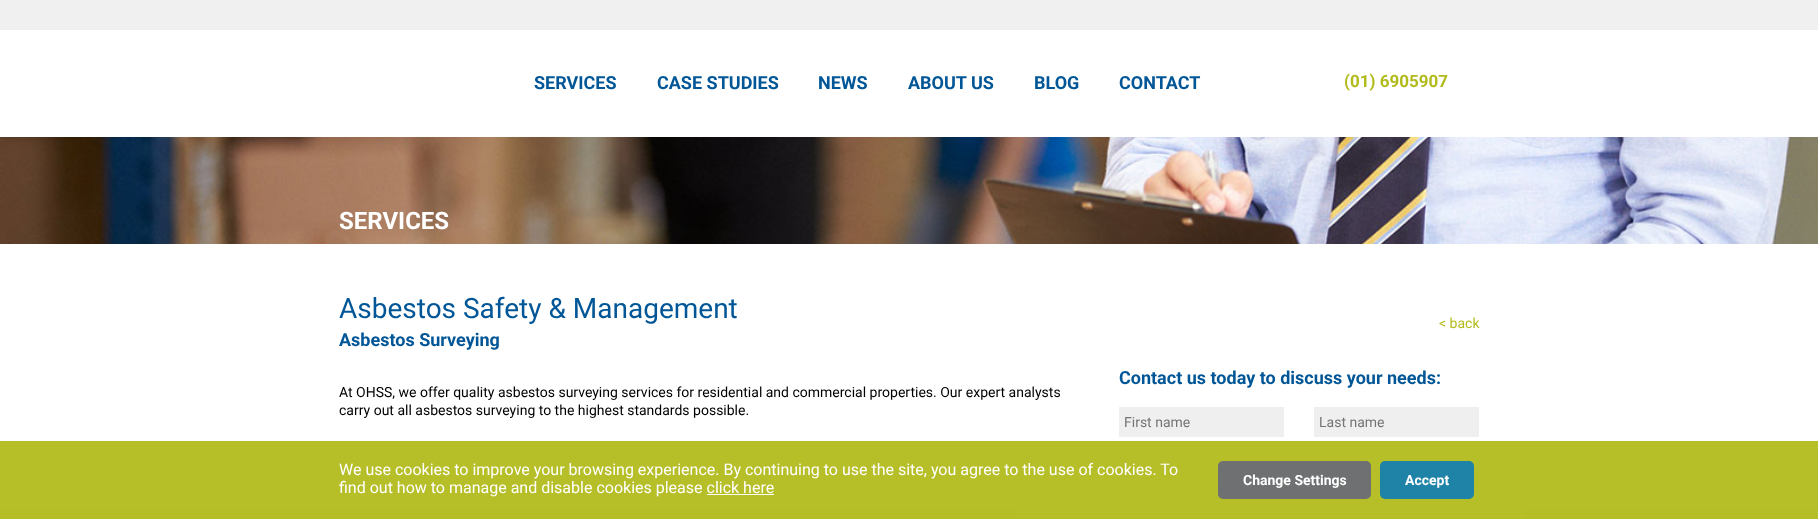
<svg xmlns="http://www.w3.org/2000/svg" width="1818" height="519">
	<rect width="100%" height="100%" fill="#FFFFFF" />
	<rect x="0" y="0" width="1818" height="30" fill="#F0F0F0" />
	<g font-family="Roboto" font-size="18" font-weight="700" fill="#005696">
		<text x="534" y="89">SERVICES</text>
		<text x="657" y="89">CASE STUDIES</text>
		<text x="818" y="89">NEWS</text>
		<text x="908" y="89">ABOUT US</text>
		<text x="1034" y="89">BLOG</text>
		<text x="1119" y="89">CONTACT</text>
	</g>
	<text x="1344" y="87" font-family="Roboto" font-size="17" font-weight="700" fill="#B2BB1C">(01) 6905907</text>
	<image x="0" y="137" width="1818" height="107" href="assets/img1.png" />
	<text x="339" y="229" font-family="Roboto" font-size="24" font-weight="700" fill="#FFFFFF">SERVICES</text>
	<text x="339" y="318" font-family="Roboto" font-size="28" fill="#005696">Asbestos Safety &amp; Management</text>
	<text x="339" y="346" font-family="Roboto" font-size="18" font-weight="700" fill="#005696">Asbestos Surveying</text>
	<text x="1439" y="328" font-family="Roboto" font-size="14" fill="#B2BB1C">&lt; back</text>
	<g font-family="Roboto" font-size="14" fill="#000000">
		<text x="339" y="397">At OHSS, we offer quality asbestos surveying services for residential and commercial properties. Our expert analysts</text>
		<text x="339" y="415">carry out all asbestos surveying to the highest standards possible.</text>
	</g>
	<text x="1119" y="384" font-family="Roboto" font-size="18" font-weight="700" fill="#005696">Contact us today to discuss your needs:</text>
	<rect x="1119" y="407" width="165" height="30" fill="#EFEFEF" />
	<text x="1124" y="427" font-family="Roboto" font-size="14" fill="#757575">First name</text>
	<rect x="1314" y="407" width="165" height="30" fill="#EFEFEF" />
	<text x="1319" y="427" font-family="Roboto" font-size="14" fill="#757575">Last name</text>
	<rect x="1119" y="452" width="165" height="30" fill="#EFEFEF" />
	<rect x="1314" y="452" width="165" height="30" fill="#EFEFEF" />
	<rect x="1119" y="497" width="360" height="22" fill="#EFEFEF" />
	<rect x="0" y="441" width="1818" height="78" fill="#B2BB1C" fill-opacity="0.95" />
	<g font-family="Roboto" font-size="16" fill="#FFFFFF">
		<text x="339" y="475">We use cookies to improve your browsing experience. By continuing to use the site, you agree to the use of cookies. To</text>
		<text x="339" y="493">find out how to manage and disable cookies please click here</text>
	</g>
	<rect x="707" y="494" width="67" height="1" fill="#FFFFFF" />
	<rect x="1218" y="461" width="153" height="38" rx="5" fill="#6E7071" />
	<text x="1243" y="485" font-family="Roboto" font-size="14" font-weight="700" fill="#FFFFFF">Change Settings</text>
	<rect x="1380" y="461" width="94" height="38" rx="5" fill="#1F83A8" />
	<text x="1405" y="485" font-family="Roboto" font-size="14" font-weight="700" fill="#FFFFFF">Accept</text>
</svg>
